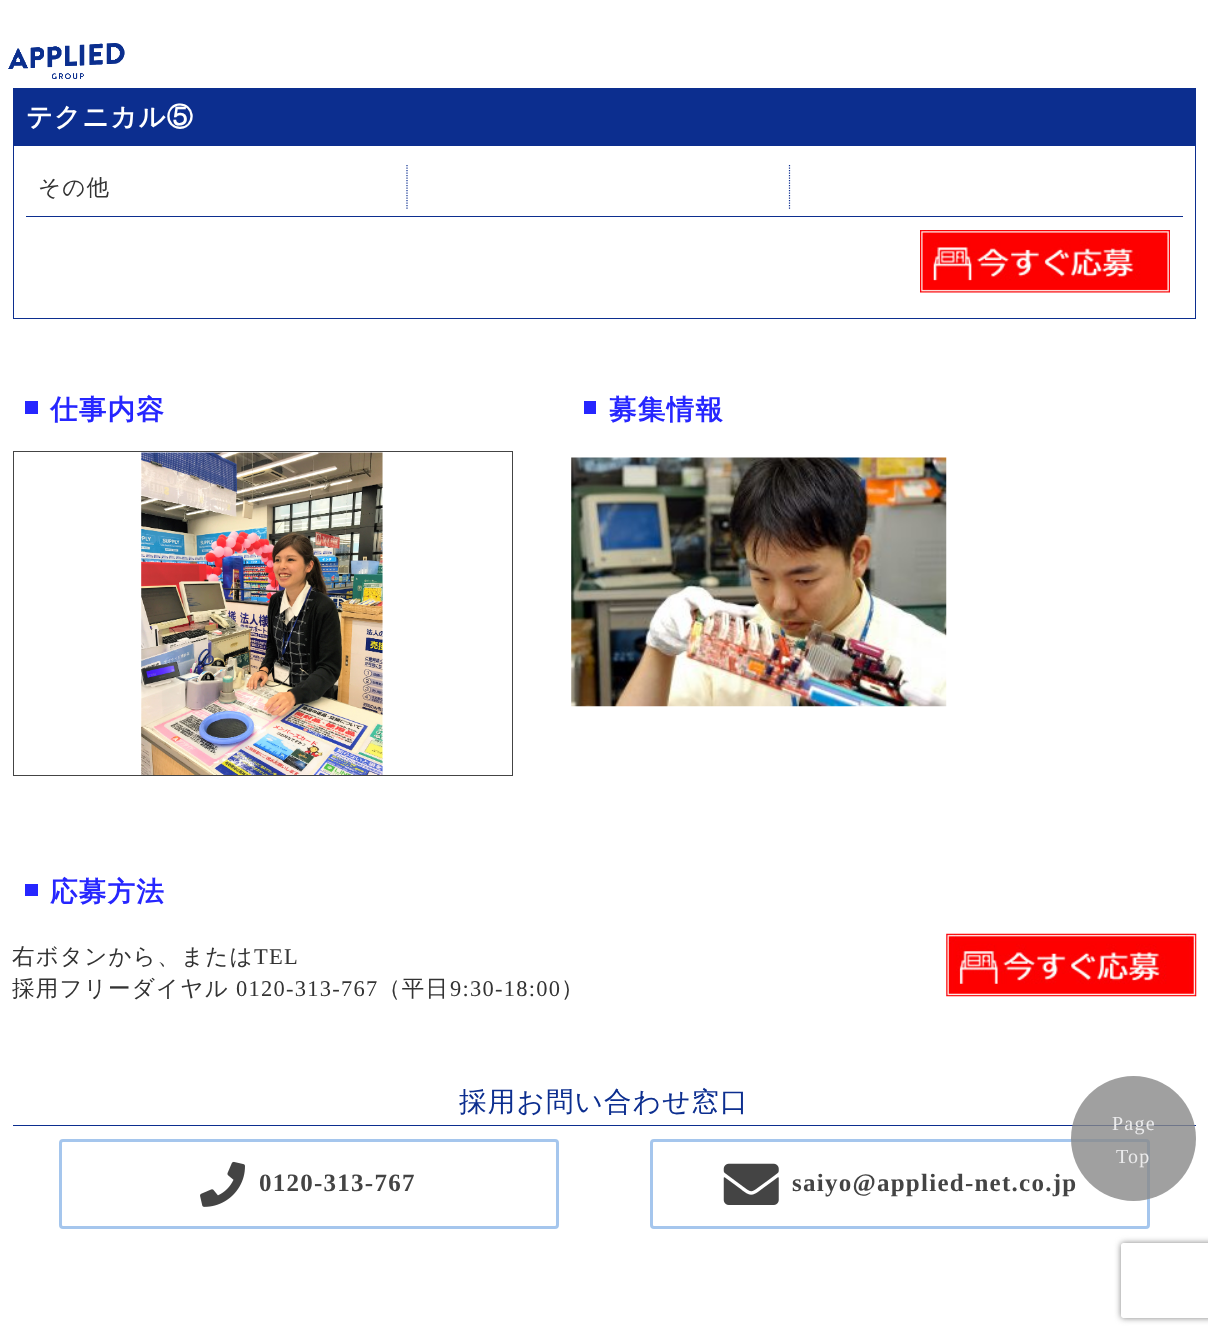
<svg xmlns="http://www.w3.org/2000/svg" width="1208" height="1334">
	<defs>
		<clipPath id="clip1"><path d="M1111 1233H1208V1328H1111ZM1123.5 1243H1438.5C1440 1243 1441 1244 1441 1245.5V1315.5C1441 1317 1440 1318 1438.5 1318H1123.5C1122 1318 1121 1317 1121 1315.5V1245.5C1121 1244 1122 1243 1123.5 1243Z" clip-rule="evenodd" /></clipPath>
	</defs>
	<rect width="100%" height="100%" fill="#FFFFFF" />
	<image x="8" y="43" width="117" height="36" href="assets/img1.png" />
	<rect x="13.5" y="88.5" width="1182" height="230" fill="none" stroke="#0C2E8F" />
	<rect x="14" y="89" width="1181" height="57" fill="#0C2E8F" />
	<text x="26" y="126" font-family="WenQuanYi Zen Hei" font-size="26.25" font-weight="700" letter-spacing="1.25" fill="#FFFFFF">テクニカル⑤</text>
	<rect x="26" y="216" width="1157" height="1" fill="#0C2E8F" />
	<path d="M407 165V210" fill="none" stroke="#0C2E8F" stroke-width="1.2" stroke-dasharray="1.25 1.25" />
	<text x="38" y="195" font-family="WenQuanYi Zen Hei" font-size="22.5" font-weight="500" letter-spacing="1.25" fill="#333333">その他</text>
	<path d="M789.5 165V210" fill="none" stroke="#0C2E8F" stroke-width="1.2" stroke-dasharray="1.25 1.25" />
	<image x="920" y="230" width="250" height="63" href="assets/img2.png" />
	<rect x="25" y="401" width="13" height="13" fill="#2626FF" />
	<text x="50" y="419" font-family="WenQuanYi Zen Hei" font-size="27.5" font-weight="700" letter-spacing="1.25" fill="#2626FF">仕事内容</text>
	<rect x="13.5" y="451.5" width="499" height="324" fill="none" stroke="#444444" />
	<image x="141" y="452" width="242" height="323" href="assets/img3.png" />
	<rect x="584" y="401" width="12" height="13" fill="#2626FF" />
	<text x="609" y="419" font-family="WenQuanYi Zen Hei" font-size="27.5" font-weight="700" letter-spacing="1.25" fill="#2626FF">募集情報</text>
	<image x="571" y="457" width="376" height="250" href="assets/img4.png" />
	<rect x="25" y="884" width="13" height="12" fill="#2626FF" />
	<text x="50" y="901" font-family="WenQuanYi Zen Hei" font-size="27.5" font-weight="700" letter-spacing="1.25" fill="#2626FF">応募方法</text>
	<text x="12" y="964" font-family="WenQuanYi Zen Hei" font-size="22.5" font-weight="500" letter-spacing="1.25" fill="#333333">右ボタンから、または</text>
	<text x="254" y="964" font-family="Liberation Serif" font-size="22.5" letter-spacing="1.25" fill="#333333">TEL</text>
	<text x="12" y="996" font-family="WenQuanYi Zen Hei" font-size="22.5" font-weight="500" letter-spacing="1.25" fill="#333333">採用フリーダイヤル</text>
	<text x="236" y="996" font-family="Liberation Serif" font-size="22.5" letter-spacing="1.25" fill="#333333">0120-313-767</text>
	<text x="378" y="996" font-family="WenQuanYi Zen Hei" font-size="22.5" font-weight="500" letter-spacing="1.25" fill="#333333">（平日</text>
	<text x="450" y="996" font-family="Liberation Serif" font-size="22.5" letter-spacing="1.25" fill="#333333">9:30-18:00</text>
	<text x="561" y="996" font-family="WenQuanYi Zen Hei" font-size="22.5" font-weight="500" letter-spacing="1.25" fill="#333333">）</text>
	<image x="946" y="933" width="251" height="64" href="assets/img5.png" />
	<rect x="13" y="1125" width="1183" height="1" fill="#0C2E8F" />
	<text x="459" y="1111" font-family="WenQuanYi Zen Hei" font-size="27.5" font-weight="500" letter-spacing="1.25" fill="#0C2E8F">採用お問い合わせ窓口</text>
	<rect x="60.5" y="1140.5" width="497" height="87" rx="2.5" fill="none" stroke="#A5C6ED" stroke-width="3" />
	<image x="200" y="1161" width="45" height="46" href="assets/img6.png" />
	<text x="259" y="1191" font-family="Liberation Serif" font-size="25" font-weight="700" letter-spacing="1.25" fill="#444444">0120-313-767</text>
	<rect x="651.5" y="1140.5" width="497" height="87" rx="2.5" fill="none" stroke="#A5C6ED" stroke-width="3" />
	<image x="723" y="1163" width="56" height="42" href="assets/img7.png" />
	<text x="792" y="1191" font-family="Liberation Serif" font-size="25" font-weight="700" letter-spacing="1.25" fill="#444444">saiyo@applied-net.co.jp</text>
	<circle cx="1133.5" cy="1138.5" r="62.5" fill="#888888" fill-opacity="0.8" />
	<g font-family="Liberation Serif" font-size="20" letter-spacing="1.25" fill="#EBEBEC">
		<text x="1112" y="1130">Page</text>
		<text x="1116" y="1163">Top</text>
	</g>
	<g clip-path="url(#clip1)">
		<rect x="1121" y="1243" width="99" height="75" rx="2.5" fill="#808080" filter="blur(3px)" />
	</g>
</svg>
